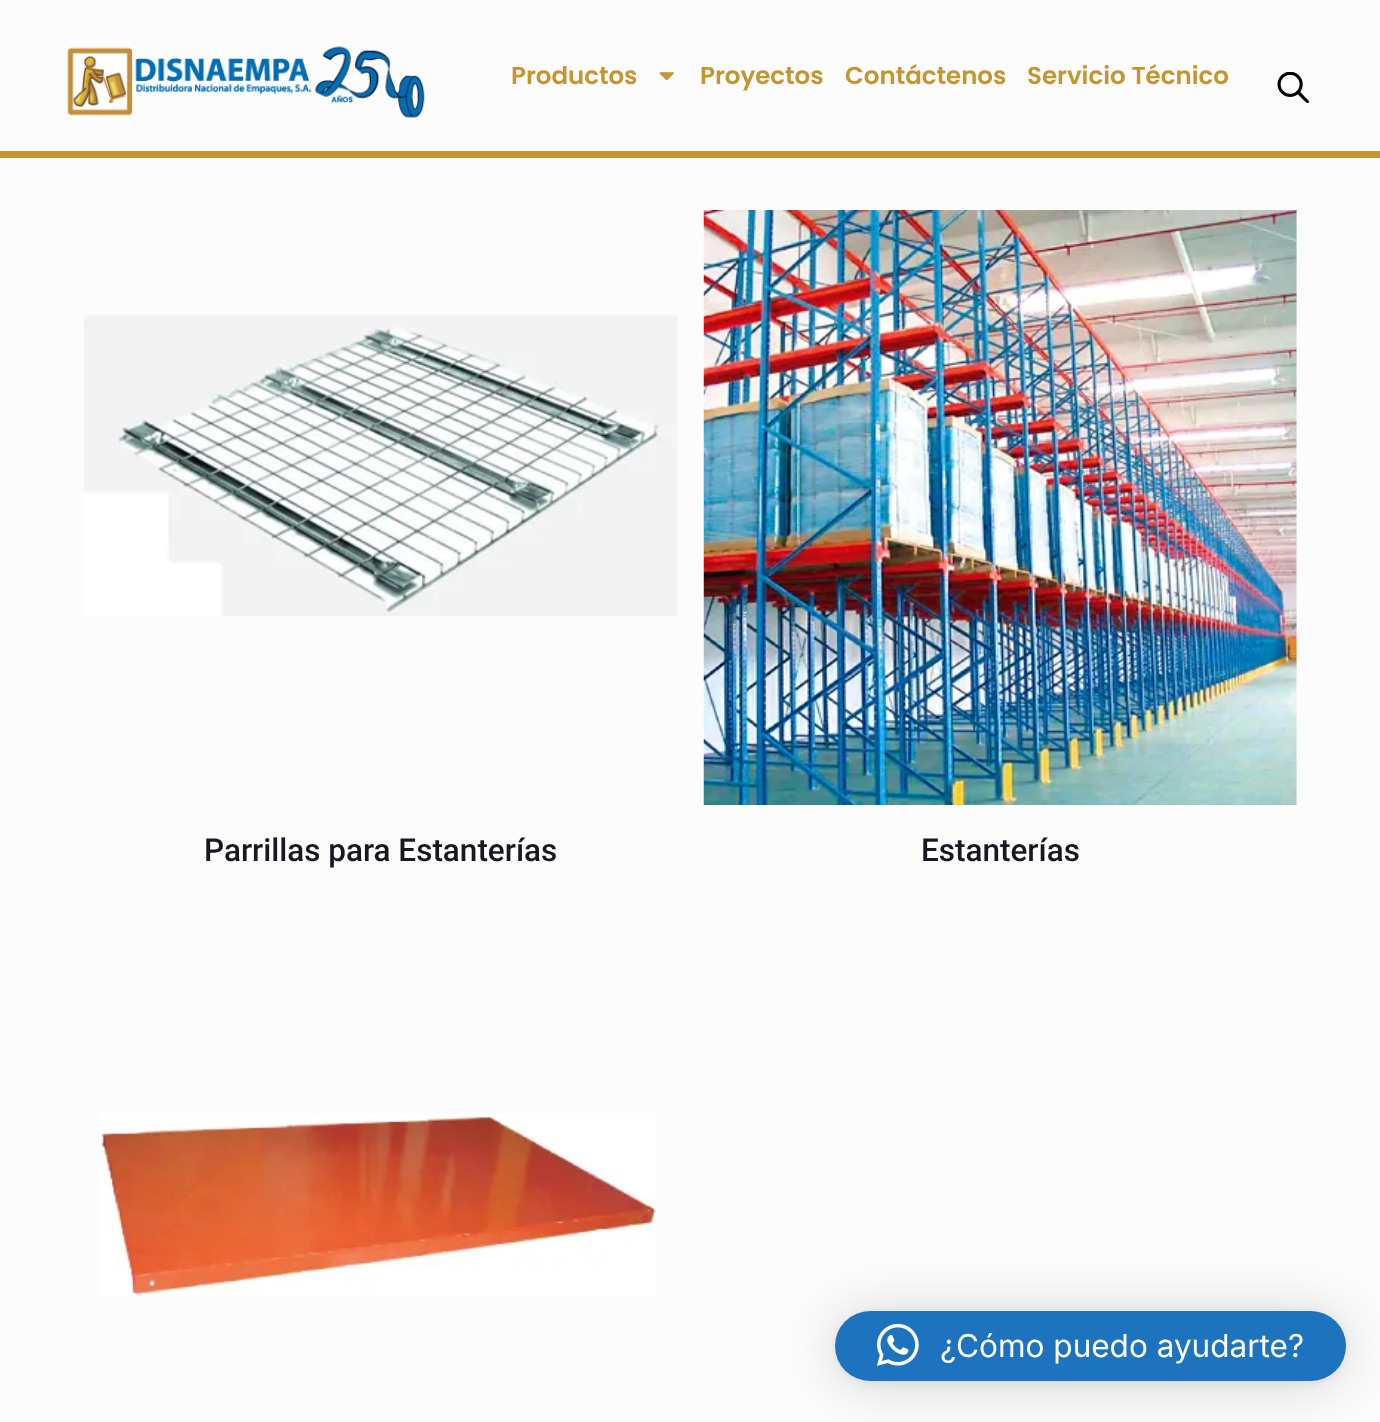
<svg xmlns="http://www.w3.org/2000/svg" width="1380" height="1422">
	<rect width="100%" height="100%" fill="#FCFCFC" />
	<image x="67" y="46" width="358" height="72" href="assets/img1.png" />
	<text x="511" y="84" font-family="Poppins" font-size="24.5" font-weight="600" fill="#C69430">Productos</text>
	<image x="659" y="72" width="15" height="9" href="assets/img2.png" />
	<g font-family="Poppins" font-size="24.5" font-weight="600" fill="#C69430">
		<text x="700" y="84">Proyectos</text>
		<text x="845" y="84">Contáctenos</text>
		<text x="1027" y="84">Servicio Técnico</text>
	</g>
	<image x="1277" y="72" width="32" height="31" href="assets/img3.png" />
	<rect x="0" y="151" width="1380" height="7" fill="#C69430" />
	<image x="84" y="314" width="593" height="303" href="assets/img4.png" />
	<text x="204" y="861" font-family="Roboto" font-size="31.5" font-weight="500" fill="#161922">Parrillas para Estanterías</text>
	<image x="703" y="210" width="594" height="595" href="assets/img5.png" />
	<text x="921" y="861" font-family="Roboto" font-size="31.5" font-weight="500" fill="#161922">Estanterías</text>
	<image x="100" y="1113" width="556" height="183" href="assets/img6.png" />
	<rect x="835" y="1314" width="511" height="70" rx="35" fill="#000000" fill-opacity="0.16" filter="blur(28px)" />
	<rect x="835" y="1313" width="511" height="70" rx="35" fill="#000000" fill-opacity="0.06" filter="blur(5px)" />
	<rect x="835" y="1311" width="511" height="70" rx="35" fill="#1E73BE" />
	<image x="876" y="1323" width="43" height="43" href="assets/img7.png" />
	<text x="940" y="1357" font-family="Inter" font-size="31.5" fill="#FFFFFF">¿Cómo puedo ayudarte?</text>
</svg>
